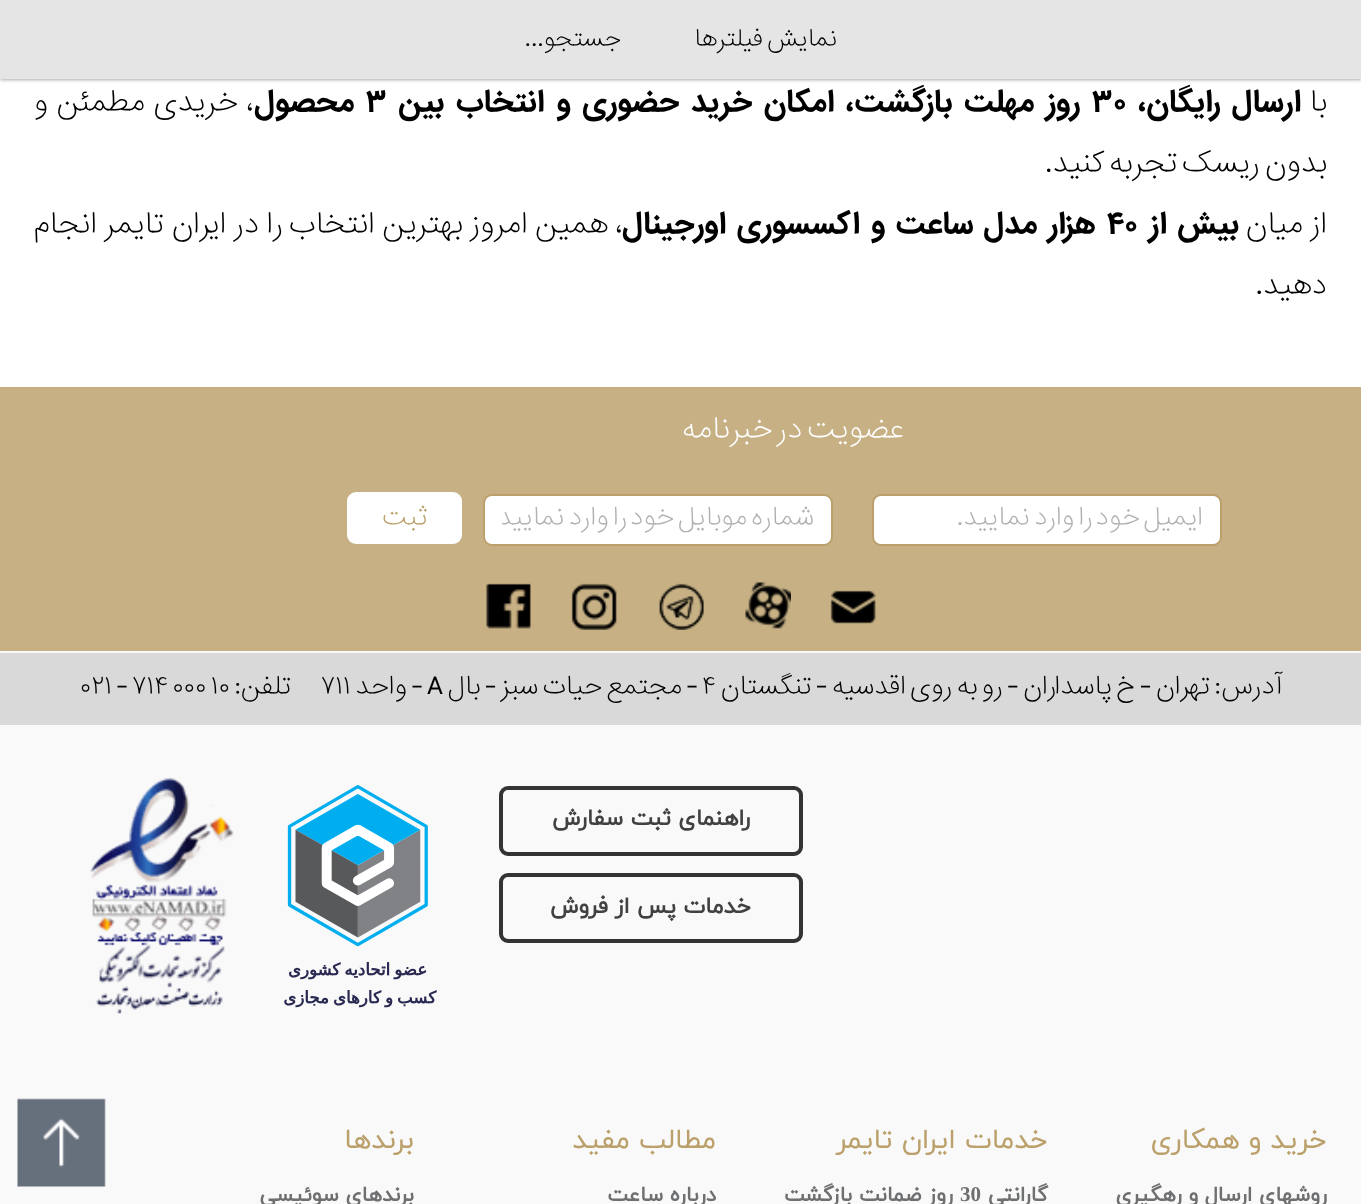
<svg xmlns="http://www.w3.org/2000/svg" width="1361" height="1204">
	<defs>
		<clipPath id="clip1"><rect x="502" y="497" width="312" height="42" /></clipPath>
	</defs>
	<rect width="100%" height="100%" fill="#FFFFFF" />
	<rect x="0" y="0" width="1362" height="79" fill="#000000" fill-opacity="0.5" filter="blur(2px)" />
	<rect x="0" y="0" width="1361" height="79" fill="#E5E5E5" />
	<g font-family="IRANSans" font-size="22.75" font-weight="200" direction="rtl" fill="#000000">
		<text x="837" y="46">نمایش فیلترها</text>
		<text x="621" y="46">جستجو...</text>
	</g>
	<text x="1327" y="111" font-family="IRANSans" font-size="28" font-weight="200" direction="rtl" fill="#000000">با</text>
	<text x="1301" y="111" word-spacing="3.75" font-family="IRANSans" font-size="28" font-weight="700" direction="rtl" fill="#000000">ارسال رایگان،</text>
	<text x="1092" y="111" font-family="IRANSans" font-size="28" font-weight="700" fill="#000000">۳۰</text>
	<text x="1080" y="111" word-spacing="3.75" font-family="IRANSans" font-size="28" font-weight="700" direction="rtl" fill="#000000">روز مهلت بازگشت، امکان خرید حضوری و انتخاب بین</text>
	<text x="366" y="111" font-family="IRANSans" font-size="28" font-weight="700" fill="#000000">۳</text>
	<text x="354" y="111" font-family="IRANSans" font-size="28" font-weight="700" direction="rtl" fill="#000000">محصول</text>
	<g font-family="IRANSans" font-size="28" font-weight="200" direction="rtl" fill="#000000">
		<text x="254" y="111" word-spacing="3.75">، خریدی مطمئن و</text>
		<text x="1327" y="172">بدون ریسک تجربه کنید.</text>
		<text x="1327" y="233" word-spacing="2.75">از میان</text>
	</g>
	<text x="1239" y="233" word-spacing="2.75" font-family="IRANSans" font-size="28" font-weight="700" direction="rtl" fill="#000000">بیش از</text>
	<text x="1107" y="233" font-family="IRANSans" font-size="28" font-weight="700" fill="#000000">۴۰</text>
	<text x="1096" y="233" word-spacing="2.75" font-family="IRANSans" font-size="28" font-weight="700" direction="rtl" fill="#000000">هزار مدل ساعت و اکسسوری اورجینال</text>
	<g font-family="IRANSans" font-size="28" font-weight="200" direction="rtl" fill="#000000">
		<text x="623" y="233" word-spacing="2.75">، همین امروز بهترین انتخاب را در ایران تایمر انجام</text>
		<text x="1327" y="294">دهید.</text>
	</g>
	<rect x="0" y="651" width="1361" height="553" fill="#F9F9F9" />
	<rect x="0" y="387" width="1361" height="264" fill="#C6B084" />
	<text x="904" y="438" font-family="IRANSans" font-size="28" font-weight="200" direction="rtl" fill="#FFFFFF">عضویت در خبرنامه</text>
	<rect x="873" y="495" width="348" height="50" rx="8" fill="#FFFFFF" stroke="#BBA06B" stroke-width="2" />
	<text x="1203" y="525" font-family="IRANSans" font-size="24.5" font-weight="200" direction="rtl" fill="#B1B1B1">ایمیل خود را وارد نمایید.</text>
	<rect x="484" y="495" width="348" height="50" rx="8" fill="#FFFFFF" stroke="#BBA06B" stroke-width="2" />
	<g clip-path="url(#clip1)">
		<text x="814" y="525" font-family="IRANSans" font-size="24.5" font-weight="200" direction="rtl" fill="#B1B1B1">شماره موبایل خود را وارد نمایید.</text>
	</g>
	<rect x="347" y="492" width="115" height="52" rx="9" fill="#FFFFFF" />
	<text x="427" y="525" font-family="IRANSans" font-size="24.5" font-weight="200" direction="rtl" fill="#BBA06B">ثبت</text>
	<image x="830" y="590" width="46" height="34" href="assets/img1.png" />
	<image x="745" y="582" width="46" height="47" href="assets/img2.png" />
	<image x="659" y="583" width="45" height="47" href="assets/img3.png" />
	<image x="571" y="583" width="46" height="47" href="assets/img4.png" />
	<image x="486" y="583" width="45" height="46" href="assets/img5.png" />
	<rect x="0" y="653" width="1361" height="72" fill="#D9D9D9" />
	<text x="1282" y="694" font-family="IRANSans" font-size="24.5" font-weight="200" direction="rtl" fill="#000000">آدرس: تهران - خ پاسداران - رو به روی اقدسیه - تنگستان</text>
	<text x="702" y="694" font-family="IRANSans" font-size="24.5" font-weight="200" fill="#000000">۴</text>
	<text x="698" y="694" font-family="IRANSans" font-size="24.5" font-weight="200" direction="rtl" fill="#000000">- مجتمع حیات سبز - بال</text>
	<text x="427" y="694" font-family="IRANSans" font-size="24.5" font-weight="200" fill="#000000">A</text>
	<text x="423" y="694" font-family="IRANSans" font-size="24.5" font-weight="200" direction="rtl" fill="#000000">- واحد</text>
	<text x="321" y="694" font-family="IRANSans" font-size="24.5" font-weight="200" fill="#000000">۷۱۱</text>
	<text x="291" y="694" font-family="IRANSans" font-size="24.5" font-weight="200" direction="rtl" fill="#000000">تلفن:</text>
	<text x="80" y="694" font-family="IRANSans" font-size="24.5" font-weight="200" fill="#000000">۰۲۱ - ۷۱۴ ۰۰۰ ۱۰</text>
	<rect x="501" y="788" width="300" height="66" rx="7" fill="none" stroke="#333333" stroke-width="4" />
	<text x="750" y="825" font-family="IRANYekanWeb" font-size="22.75" font-weight="700" direction="rtl" fill="#414141">راهنمای ثبت سفارش</text>
	<image x="284" y="785" width="153" height="223" href="assets/img6.png" />
	<image x="90" y="778" width="144" height="236" href="assets/img7.png" />
	<rect x="501" y="875" width="300" height="66" rx="7" fill="none" stroke="#333333" stroke-width="4" />
	<text x="751" y="913" font-family="IRANYekanWeb" font-size="22.75" font-weight="700" direction="rtl" fill="#414141">خدمات پس از فروش</text>
	<text x="1327" y="1148" font-family="IRANYekanWeb" font-size="28" direction="rtl" fill="#BBA06B">خرید و همکاری</text>
	<text x="1327" y="1201" font-family="IRANYekanWeb" font-size="21" font-weight="700" direction="rtl" fill="#6E6F71">روشهای ارسال و رهگیری</text>
	<text x="1048" y="1148" font-family="IRANYekanWeb" font-size="28" direction="rtl" fill="#BBA06B">خدمات ایران تایمر</text>
	<text x="1048" y="1201" font-family="IRANYekanWeb" font-size="21" font-weight="700" direction="rtl" fill="#6E6F71">گارانتی</text>
	<text x="960" y="1201" font-family="Liberation Serif" font-size="21" font-weight="700" fill="#6E6F71">30</text>
	<text x="953" y="1201" font-family="IRANYekanWeb" font-size="21" font-weight="700" direction="rtl" fill="#6E6F71">روز ضمانت بازگشت</text>
	<text x="716" y="1148" font-family="IRANYekanWeb" font-size="28" direction="rtl" fill="#BBA06B">مطالب مفید</text>
	<text x="716" y="1201" font-family="IRANYekanWeb" font-size="21" font-weight="700" direction="rtl" fill="#6E6F71">درباره ساعت</text>
	<text x="414" y="1148" font-family="IRANYekanWeb" font-size="28" direction="rtl" fill="#BBA06B">برندها</text>
	<text x="414" y="1201" font-family="IRANYekanWeb" font-size="21" font-weight="700" direction="rtl" fill="#6E6F71">برندهای سوئیسی</text>
	<image x="17" y="1098" width="89" height="89" href="assets/img8.png" />
</svg>
